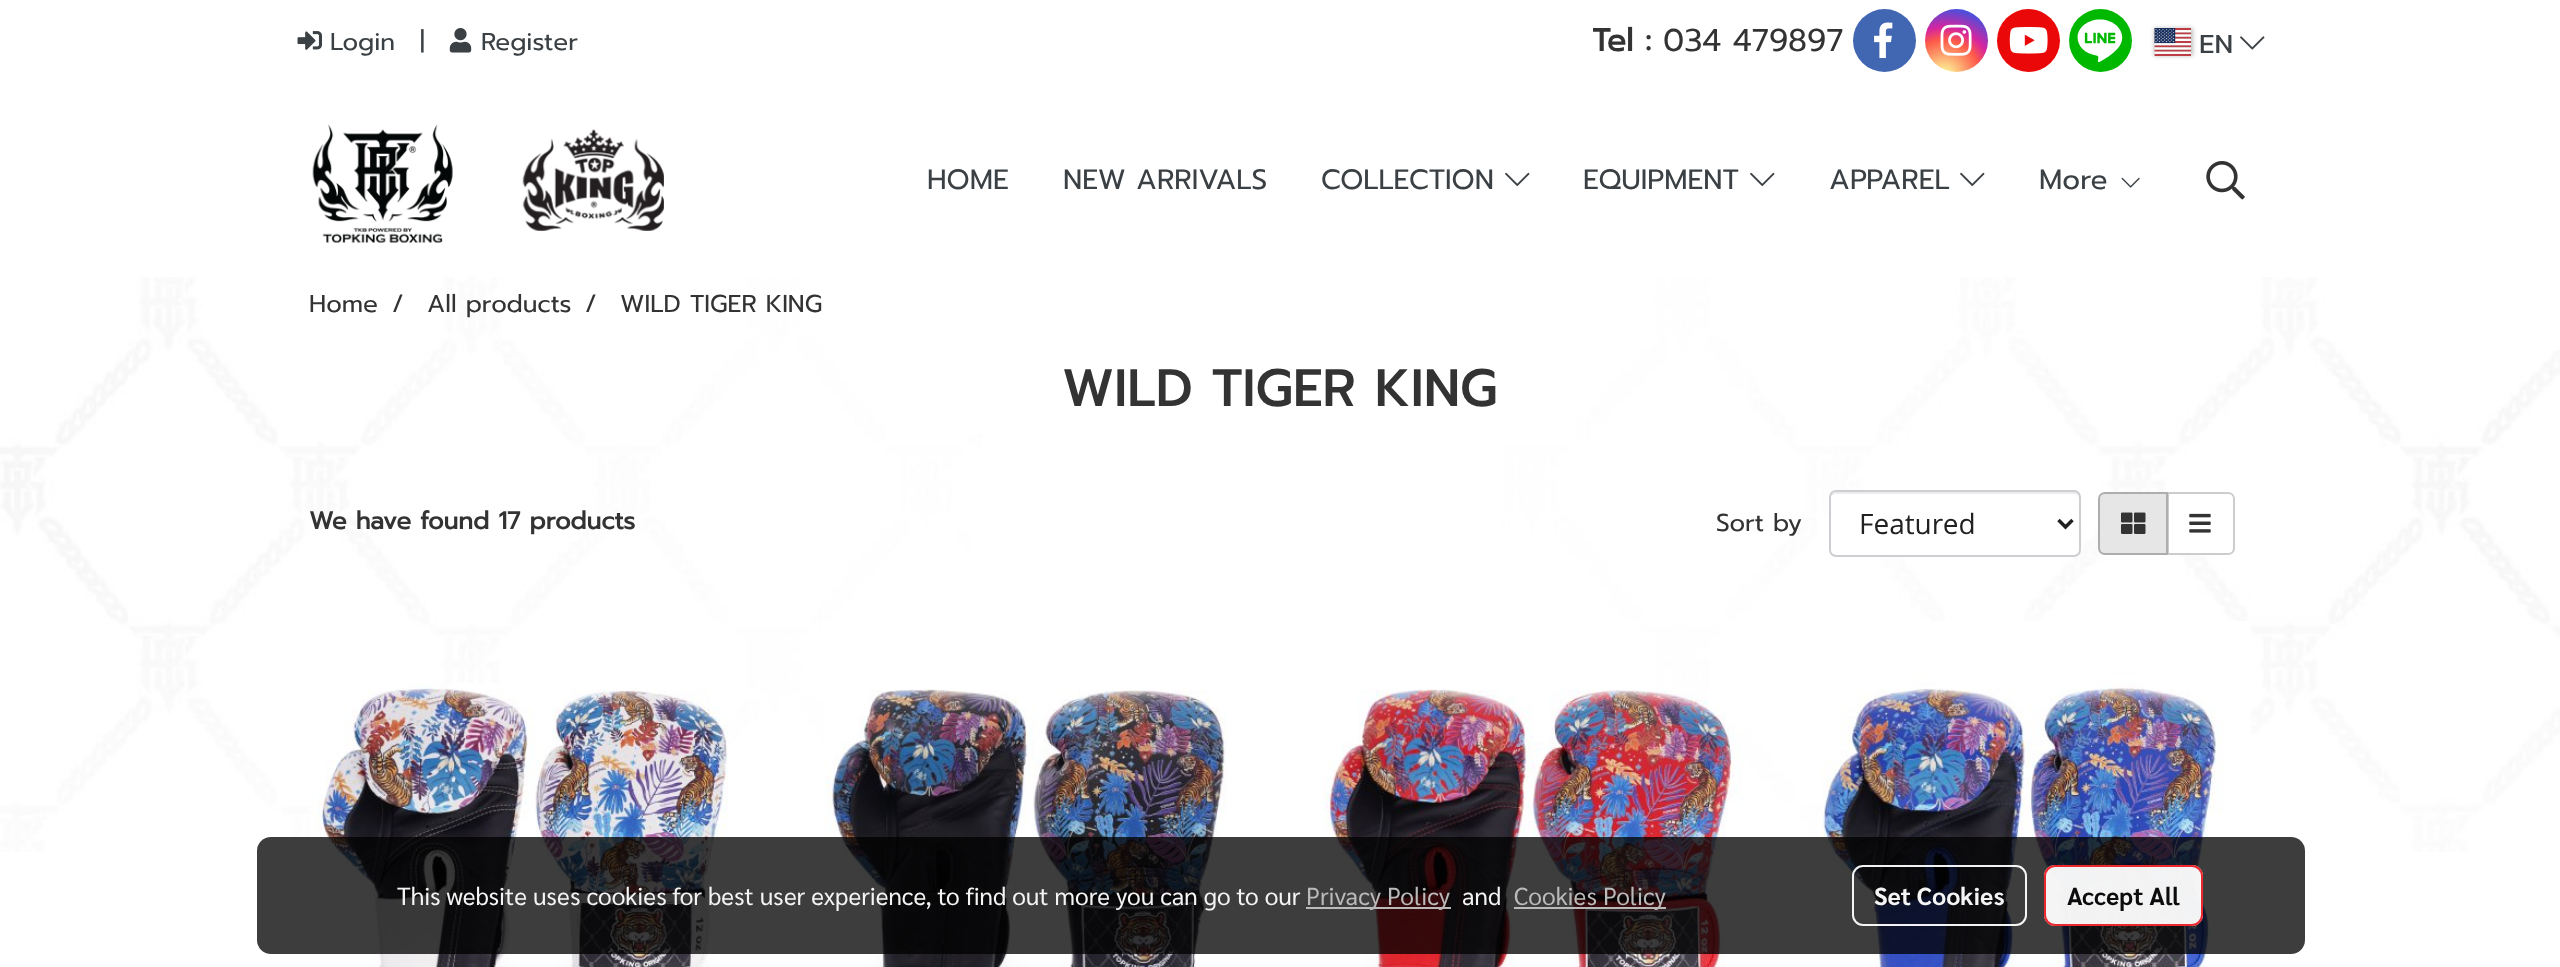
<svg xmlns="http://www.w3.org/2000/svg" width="2560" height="967">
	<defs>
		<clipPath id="clip1"><rect x="1593" y="16" width="250" height="52" /></clipPath>
		<radialGradient id="g1" gradientUnits="userSpaceOnUse" cx="1944" cy="76" r="81"><stop offset="0" stop-color="#FDF497" /><stop offset="0.05" stop-color="#FDF497" /><stop offset="0.45" stop-color="#FD5949" /><stop offset="0.6" stop-color="#D6249F" /><stop offset="0.9" stop-color="#285AEB" /></radialGradient>
	</defs>
	<rect width="100%" height="100%" fill="#FFFFFF" />
	<image x="0" y="277" width="2560" height="575" href="assets/img1.png" />
	<image x="297" y="31" width="25" height="19" href="assets/img2.png" />
	<g font-family="Prompt" font-size="24.5" fill="#3B4044">
		<text x="330" y="50">Login</text>
		<text x="420" y="49">|</text>
	</g>
	<image x="449" y="28" width="23" height="25" href="assets/img3.png" />
	<text x="481" y="50" font-family="Prompt" font-size="24.5" fill="#3B4044">Register</text>
	<g clip-path="url(#clip1)">
		<text x="1592" y="51" font-family="Prompt" font-size="31.5" font-weight="700" fill="#333333">Tel :</text>
	</g>
	<text x="1663" y="51" font-family="Prompt" font-size="31.5" fill="#333333">034 479897</text>
	<circle cx="1884.5" cy="40.5" r="31.5" fill="#4267B2" />
	<image x="1874" y="22" width="19" height="36" href="assets/img4.png" />
	<circle cx="1956.5" cy="40.5" r="31.5" fill="url(#g1)" />
	<image x="1940" y="24" width="32" height="32" href="assets/img5.png" />
	<circle cx="2028.5" cy="40.5" r="31.5" fill="#EB0808" />
	<image x="2009" y="26" width="39" height="28" href="assets/img6.png" />
	<circle cx="2100.5" cy="40.5" r="31.5" fill="#00B800" />
	<image x="2069" y="9" width="62" height="53" href="assets/img7.png" />
	<rect x="2154" y="28" width="39" height="28" fill="#000000" fill-opacity="0.25" filter="blur(2px)" />
	<image x="2154" y="28" width="37" height="28" href="assets/img8.png" />
	<text x="2199" y="53" font-family="Kanit" font-size="28" fill="#3B4044">EN</text>
	<image x="2240" y="36" width="25" height="14" href="assets/img9.png" />
	<image x="312" y="124" width="352" height="119" href="assets/img10.png" />
	<g font-family="Prompt" font-size="28" fill="#3B4044">
		<text x="927" y="189">HOME</text>
		<text x="1063" y="189">NEW ARRIVALS</text>
		<text x="1321" y="189">COLLECTION</text>
	</g>
	<image x="1505" y="172" width="25" height="14" href="assets/img11.png" />
	<text x="1583" y="189" font-family="Prompt" font-size="28" fill="#3B4044">EQUIPMENT</text>
	<image x="1750" y="172" width="25" height="14" href="assets/img11.png" />
	<text x="1829" y="189" font-family="Prompt" font-size="28" fill="#3B4044">APPAREL</text>
	<image x="1960" y="172" width="25" height="14" href="assets/img11.png" />
	<text x="2039" y="189" font-family="Prompt" font-size="28" fill="#3B4044">More</text>
	<image x="2121" y="177" width="19" height="11" href="assets/img12.png" />
	<image x="2206" y="161" width="39" height="39" href="assets/img13.png" />
	<g font-family="Prompt" font-size="24.5" fill="#333333">
		<text x="309" y="312">Home</text>
		<text x="392" y="312">/</text>
		<text x="427" y="312">All products</text>
		<text x="585" y="312">/</text>
		<text x="620" y="312">WILD TIGER KING</text>
	</g>
	<text x="1062" y="406" font-family="Prompt" font-size="52.5" font-weight="500" fill="#333333">WILD TIGER KING</text>
	<text x="309" y="529" font-family="Prompt" font-size="24.5" font-weight="700" fill="#333333">We have found 17 products</text>
	<text x="1716" y="531" font-family="Prompt" font-size="24.5" fill="#333333">Sort by</text>
	<rect x="1829" y="490" width="252" height="67" rx="7" fill="#FFFFFF" />
	<path d="M1836 494H2074C2077 494 2079 496 2079 499V497C2079 494 2077 492 2074 492H1836C1834 492 1831 494 1831 496C1832 495 1834 494 1836 494Z" fill="#ECECEC" />
	<rect x="1830" y="491" width="250" height="65" rx="6" fill="none" stroke="#CDCED2" stroke-width="2" />
	<path d="M2058.5 520L2065.5 527L2072.5 520" fill="none" stroke="#212121" stroke-width="3.5" />
	<text x="1859" y="534" font-family="Open Sans" font-size="28" fill="#212121">Featured</text>
	<path d="M2168 493H2228C2231.5 493 2234 495.5 2234 499V548C2234 551.5 2231.5 554 2228 554H2168Z" fill="#FFFFFF" stroke="#CCCCCC" stroke-width="2" />
	<path d="M2105 493H2167V554H2105C2101.5 554 2099 551.5 2099 548V499C2099 495.5 2101.5 493 2105 493Z" fill="#E6E6E6" stroke="#ADADAD" stroke-width="2" />
	<image x="2121" y="512" width="25" height="22" href="assets/img14.png" />
	<image x="2189" y="513" width="22" height="20" href="assets/img15.png" />
	<image x="310" y="683" width="418" height="284" href="assets/img16.png" />
	<image x="825" y="689" width="402" height="278" href="assets/img17.png" />
	<image x="1323" y="689" width="420" height="278" href="assets/img18.png" />
	<image x="1822" y="621" width="429" height="346" href="assets/img19.png" />
	<rect x="257" y="837" width="2048" height="117" rx="14" fill="#000000" fill-opacity="0.76" />
	<text x="397" y="905" font-family="Sarabun" font-size="24.5" fill="#F4F4F4">This website uses cookies for best user experience, to find out more you can go to our</text>
	<rect x="1306" y="907" width="145" height="2" fill="#C2C2C2" fill-opacity="0.95" />
	<text x="1306" y="905" font-family="Sarabun" font-size="24.5" fill="#BBBABA">Privacy Policy</text>
	<text x="1462" y="905" font-family="Sarabun" font-size="24.5" fill="#F4F4F4">and</text>
	<rect x="1514" y="907" width="152" height="2" fill="#C2C2C2" fill-opacity="0.95" />
	<text x="1514" y="905" font-family="Sarabun" font-size="24.5" fill="#BBBABA">Cookies Policy</text>
	<rect x="1853" y="866" width="173" height="59" rx="10" fill="none" stroke="#FFFFFF" stroke-opacity="0.95" stroke-width="2" />
	<text x="1874" y="905" font-family="Sarabun" font-size="24.5" font-weight="700" fill="#F4F4F4">Set Cookies</text>
	<rect x="2044" y="865" width="159" height="61" rx="11" fill="#FFFFFF" fill-opacity="0.95" />
	<rect x="2045" y="866" width="157" height="59" rx="10" fill="none" stroke="#EB1C24" stroke-opacity="0.95" stroke-width="2" />
	<text x="2067" y="905" font-family="Sarabun" font-size="24.5" font-weight="700" fill="#0C0C0C">Accept All</text>
</svg>
